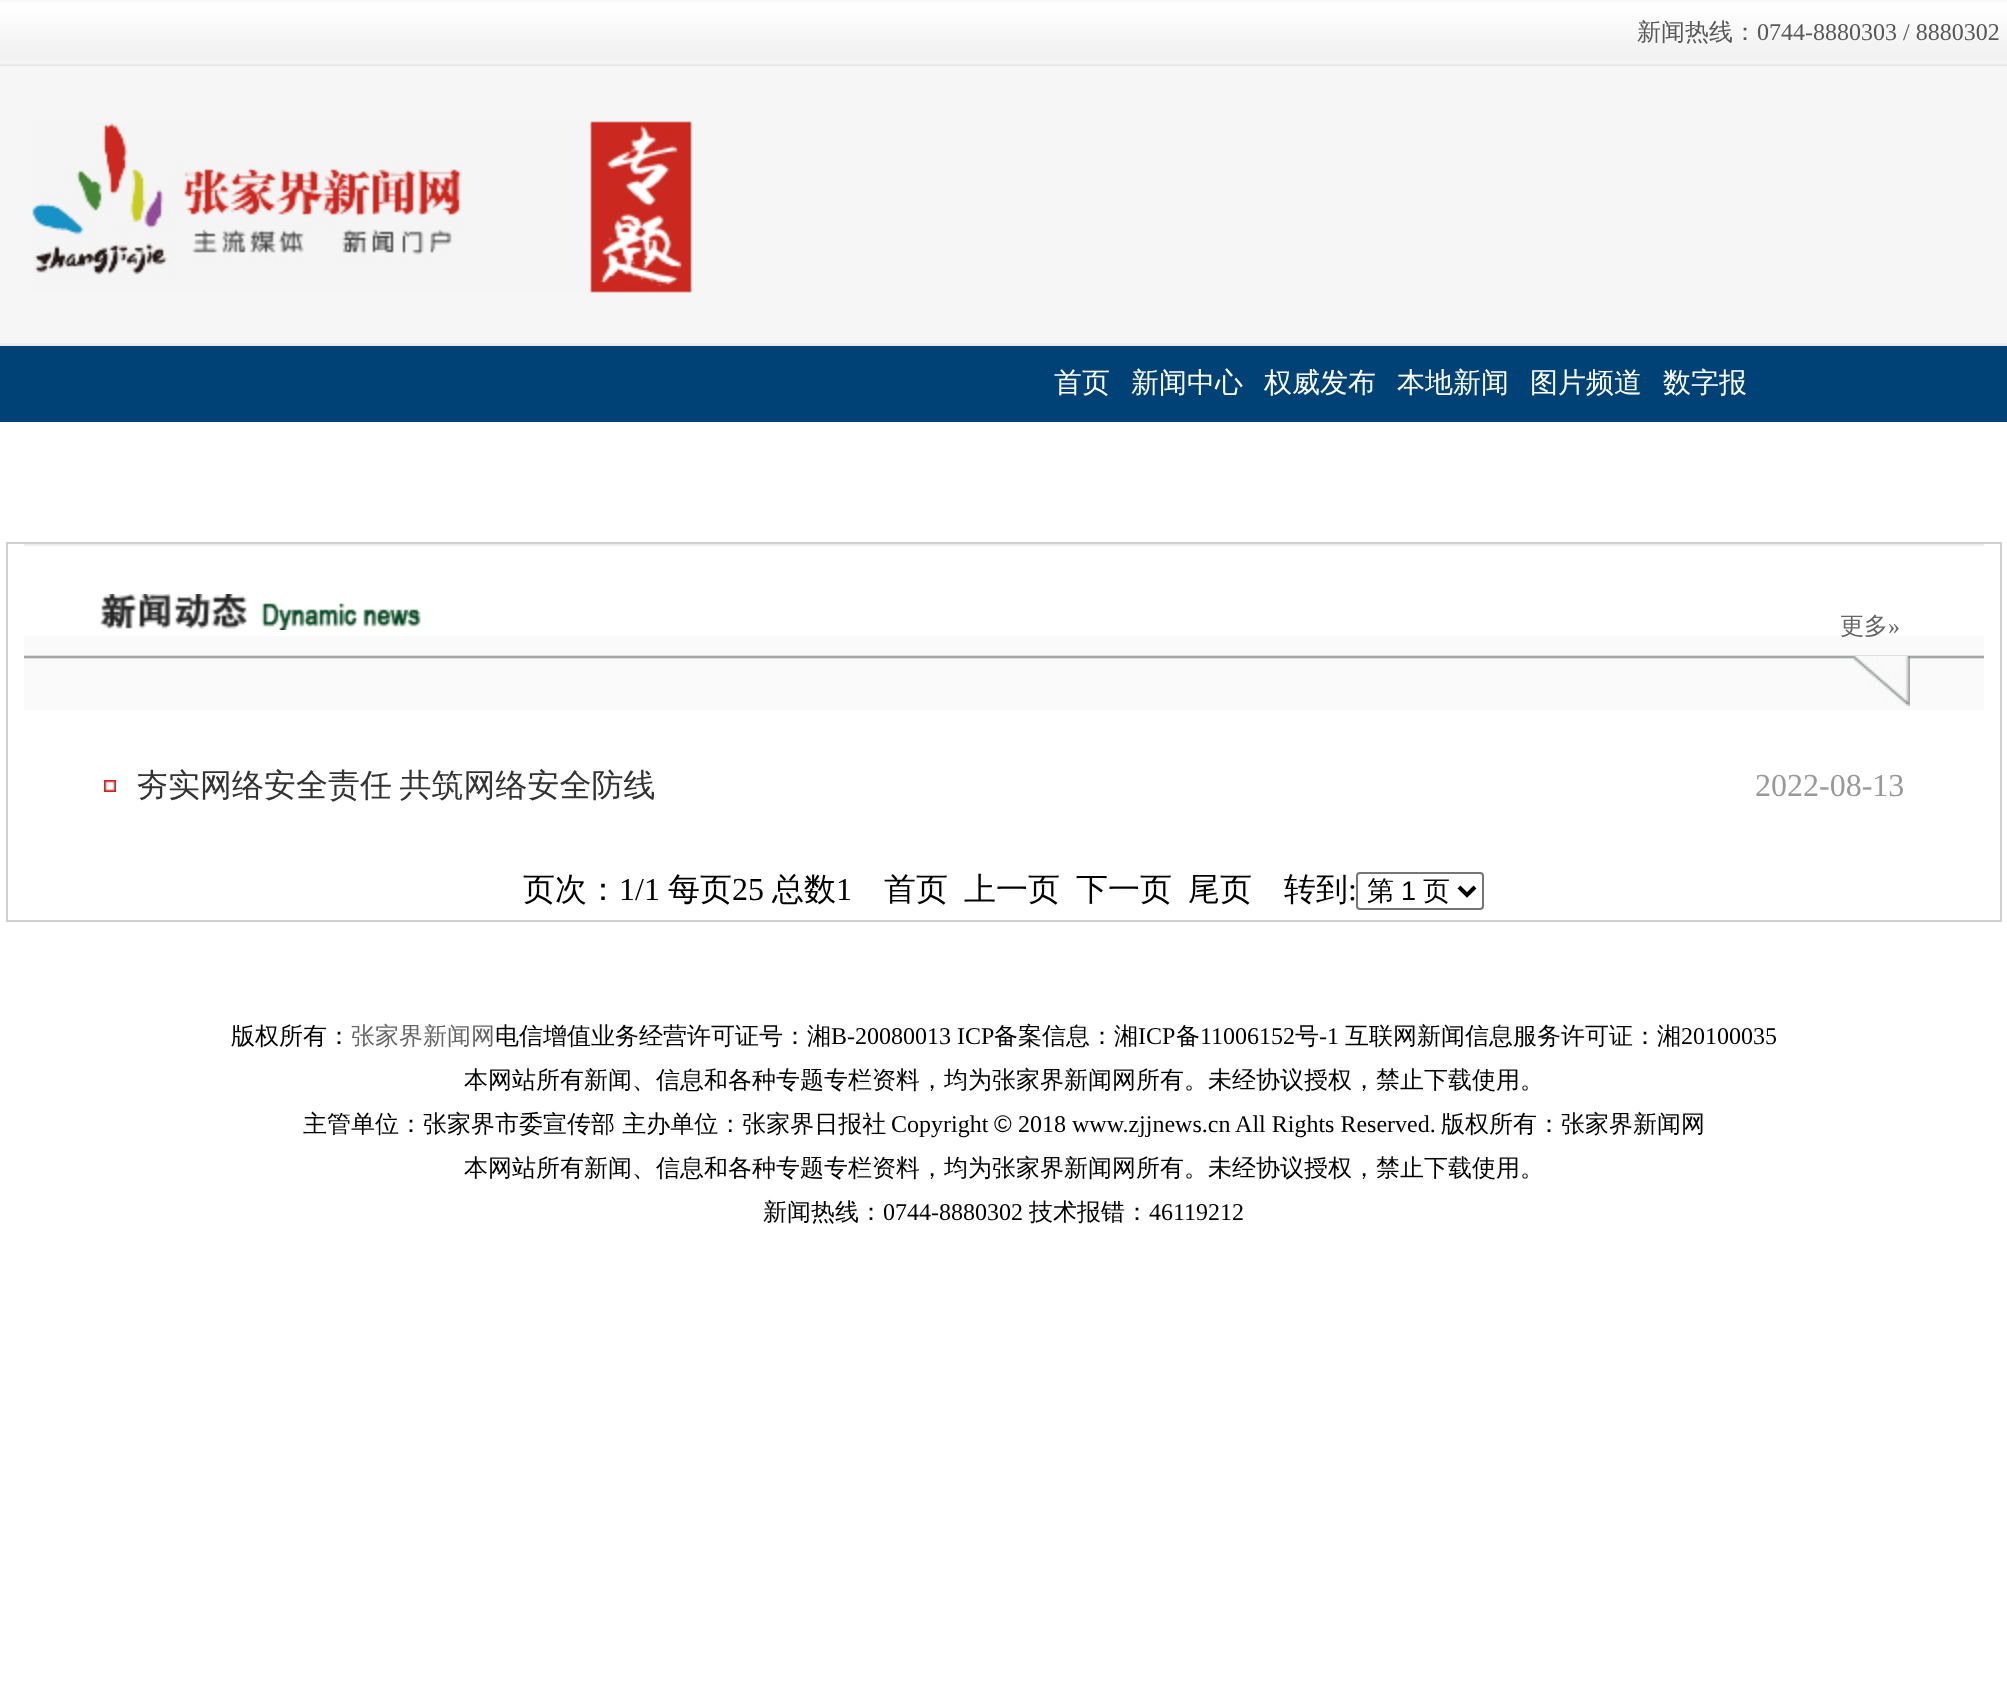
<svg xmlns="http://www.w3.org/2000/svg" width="2007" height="1699">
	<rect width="100%" height="100%" fill="#FFFFFF" />
	<image x="0" y="0" width="2007" height="66" href="assets/img1.png" />
	<text x="1637" y="40" font-family="WenQuanYi Zen Hei" font-size="24" font-weight="500" fill="#585858">新闻热线：</text>
	<text x="1757" y="40" font-family="Liberation Serif" font-size="24" fill="#585858">0744-8880303 / 8880302</text>
	<rect x="0" y="66" width="2007" height="277" fill="#F6F6F6" />
	<rect x="0" y="343" width="2007" height="3" fill="#EBEBEB" />
	<image x="32" y="121" width="660" height="172" href="assets/img2.png" />
	<rect x="0" y="346" width="2007" height="76" fill="#004276" />
	<g font-family="WenQuanYi Zen Hei" font-size="28" font-weight="500" fill="#FFFFFF">
		<text x="1054" y="392">首页</text>
		<text x="1131" y="392">新闻中心</text>
		<text x="1264" y="392">权威发布</text>
		<text x="1397" y="392">本地新闻</text>
		<text x="1530" y="392">图片频道</text>
		<text x="1663" y="392">数字报</text>
	</g>
	<rect x="7" y="543" width="1994" height="378" fill="none" stroke="#D1D1D1" stroke-width="2" />
	<image x="24" y="544" width="1960" height="166" href="assets/img3.png" />
	<image x="100" y="594" width="321" height="36" href="assets/img4.png" />
	<text x="1840" y="634" font-family="WenQuanYi Zen Hei" font-size="24" font-weight="500" fill="#666666">更多</text>
	<text x="1888" y="634" font-family="Liberation Serif" font-size="24" fill="#666666">»</text>
	<image x="1854" y="656" width="56" height="50" href="assets/img5.png" />
	<image x="104" y="780" width="12" height="12" href="assets/img6.png" />
	<text x="136" y="796" word-spacing="-2" font-family="WenQuanYi Zen Hei" font-size="32" font-weight="500" fill="#333333">夯实网络安全责任 共筑网络安全防线</text>
	<text x="1755" y="796" font-family="Liberation Serif" font-size="32" fill="#999999">2022-08-13</text>
	<text x="523" y="900" font-family="WenQuanYi Zen Hei" font-size="32" font-weight="500" fill="#000000">页次：</text>
	<text x="619" y="900" font-family="Liberation Serif" font-size="32" fill="#000000">1/1</text>
	<text x="668" y="900" font-family="WenQuanYi Zen Hei" font-size="32" font-weight="500" fill="#000000">每页</text>
	<text x="732" y="900" font-family="Liberation Serif" font-size="32" fill="#000000">25</text>
	<text x="772" y="900" font-family="WenQuanYi Zen Hei" font-size="32" font-weight="500" fill="#000000">总数</text>
	<text x="836" y="900" font-family="Liberation Serif" font-size="32" fill="#000000">1</text>
	<g font-family="WenQuanYi Zen Hei" font-size="32" font-weight="500" fill="#000000">
		<text x="884" y="900">首页</text>
		<text x="964" y="900">上一页</text>
		<text x="1076" y="900">下一页</text>
		<text x="1188" y="900">尾页</text>
		<text x="1284" y="900">转到</text>
	</g>
	<text x="1348" y="900" font-family="Liberation Serif" font-size="32" fill="#000000">:</text>
	<rect x="1357" y="873" width="126" height="36" rx="3" fill="none" stroke="#767676" stroke-width="2" />
	<path d="M1459 887L1467 895L1475 887" fill="none" stroke="#000000" stroke-width="4" />
	<text x="1367" y="900" font-family="WenQuanYi Zen Hei" font-size="27" font-weight="500" fill="#000000">第</text>
	<text x="1401" y="900" font-family="Liberation Sans" font-size="27" fill="#000000">1</text>
	<text x="1423" y="900" font-family="WenQuanYi Zen Hei" font-size="27" font-weight="500" fill="#000000">页</text>
	<text x="231" y="1044" font-family="WenQuanYi Zen Hei" font-size="24" font-weight="500" fill="#000000">版权所有：</text>
	<text x="351" y="1044" font-family="WenQuanYi Zen Hei" font-size="24" font-weight="500" fill="#666666">张家界新闻网</text>
	<text x="495" y="1044" font-family="WenQuanYi Zen Hei" font-size="24" font-weight="500" fill="#000000">电信增值业务经营许可证号：湘</text>
	<text x="831" y="1044" font-family="Liberation Serif" font-size="24" fill="#000000">B-20080013 ICP</text>
	<text x="994" y="1044" font-family="WenQuanYi Zen Hei" font-size="24" font-weight="500" fill="#000000">备案信息：湘</text>
	<text x="1138" y="1044" font-family="Liberation Serif" font-size="24" fill="#000000">ICP</text>
	<text x="1176" y="1044" font-family="WenQuanYi Zen Hei" font-size="24" font-weight="500" fill="#000000">备</text>
	<text x="1200" y="1044" font-family="Liberation Serif" font-size="24" fill="#000000">11006152</text>
	<text x="1295" y="1044" font-family="WenQuanYi Zen Hei" font-size="24" font-weight="500" fill="#000000">号</text>
	<text x="1319" y="1044" font-family="Liberation Serif" font-size="24" fill="#000000">-1</text>
	<text x="1345" y="1044" font-family="WenQuanYi Zen Hei" font-size="24" font-weight="500" fill="#000000">互联网新闻信息服务许可证：湘</text>
	<text x="1681" y="1044" font-family="Liberation Serif" font-size="24" fill="#000000">20100035</text>
	<g font-family="WenQuanYi Zen Hei" font-size="24" font-weight="500" fill="#000000">
		<text x="464" y="1088">本网站所有新闻、信息和各种专题专栏资料，均为张家界新闻网所有。未经协议授权，禁止下载使用。</text>
		<text x="303" y="1132">主管单位：张家界市委宣传部 主办单位：张家界日报社</text>
	</g>
	<text x="891" y="1132" font-family="Liberation Serif" font-size="24" fill="#000000">Copyright</text>
	<text x="994" y="1132" font-family="Liberation Sans" font-size="24" fill="#000000">©</text>
	<text x="1018" y="1132" font-family="Liberation Serif" font-size="24" fill="#000000">2018 www.zjjnews.cn All Rights Reserved.</text>
	<g font-family="WenQuanYi Zen Hei" font-size="24" font-weight="500" fill="#000000">
		<text x="1441" y="1132">版权所有：张家界新闻网</text>
		<text x="464" y="1176">本网站所有新闻、信息和各种专题专栏资料，均为张家界新闻网所有。未经协议授权，禁止下载使用。</text>
		<text x="763" y="1220">新闻热线：</text>
	</g>
	<text x="883" y="1220" font-family="Liberation Serif" font-size="24" fill="#000000">0744-8880302</text>
	<text x="1029" y="1220" font-family="WenQuanYi Zen Hei" font-size="24" font-weight="500" fill="#000000">技术报错：</text>
	<text x="1149" y="1220" font-family="Liberation Serif" font-size="24" fill="#000000">46119212</text>
</svg>
